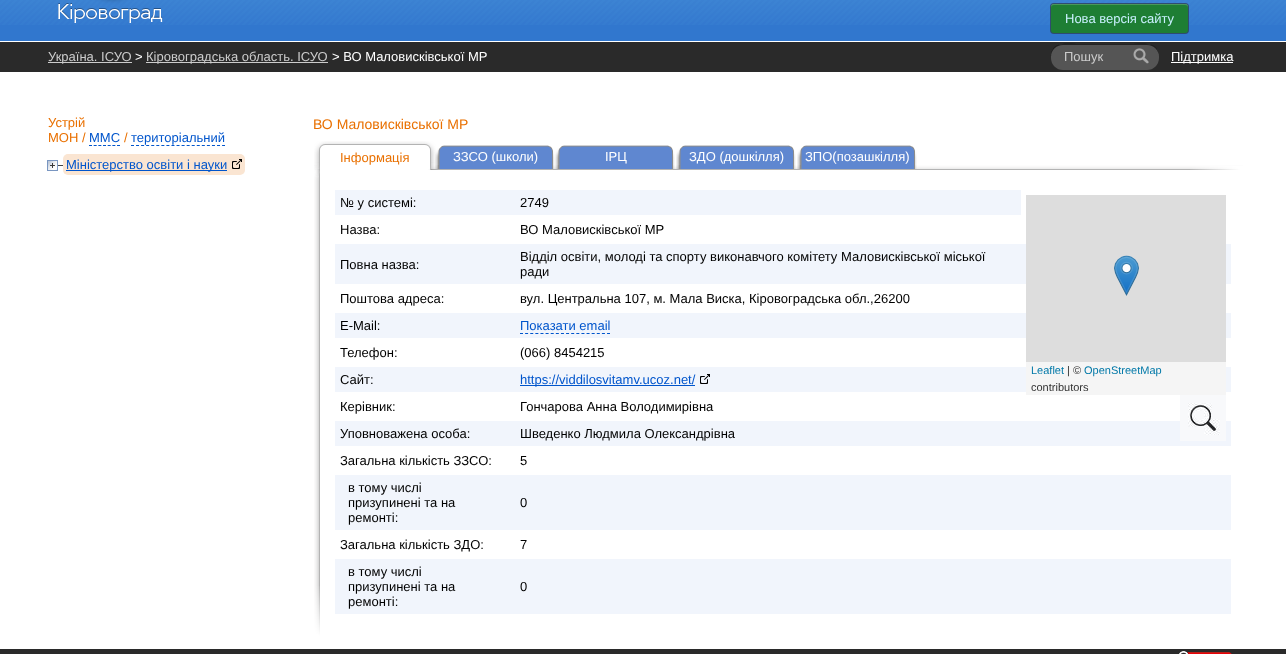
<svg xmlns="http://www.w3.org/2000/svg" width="1286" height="654">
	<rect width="100%" height="100%" fill="#FFFFFF" />
	<rect x="0" y="25" width="1286" height="16" fill="#3177CE" />
	<image x="0" y="0" width="1286" height="25" href="assets/img1.png" />
	<image x="58" y="0" width="105" height="23" href="assets/img2.png" />
	<rect x="1050" y="3" width="139" height="31" rx="4" fill="#2F4666" fill-opacity="0.9" filter="blur(0.5px)" />
	<rect x="1051" y="4" width="137" height="29" rx="3" fill="#1E7E34" />
	<path d="M1054 5H1185C1187 5 1188 6 1188 8C1188 6 1188 4 1186 4H1053C1051 4 1051 6 1051 8C1051 6 1052 5 1054 5Z" fill="#FFFFFF" fill-opacity="0.2" />
	<text x="1065" y="23" font-family="Liberation Sans" font-size="13" fill="#CAF1FF">Нова версія сайту</text>
	<rect x="0" y="42" width="1286" height="30" fill="#2A2A2A" />
	<rect x="48" y="62" width="84" height="1" fill="#CCCCCC" />
	<text x="48" y="61" font-family="Liberation Sans" font-size="13" fill="#CCCCCC">Україна. ІСУО</text>
	<text x="135" y="61" font-family="Liberation Sans" font-size="13" fill="#FFFFFF">&gt;</text>
	<rect x="146" y="62" width="182" height="1" fill="#CCCCCC" />
	<text x="146" y="61" font-family="Liberation Sans" font-size="13" fill="#CCCCCC">Кіровоградська область. ІСУО</text>
	<text x="332" y="61" font-family="Liberation Sans" font-size="13" fill="#FFFFFF">&gt; ВО Маловисківської МР</text>
	<rect x="1051" y="44" width="108" height="26" rx="12" fill="#555555" />
	<path d="M1063 45H1147C1154 45 1159 50 1159 57C1159 41 1144 44 1133 44H1077C1066 44 1051 41 1051 57C1051 50 1056 45 1063 45Z" fill="#000000" fill-opacity="0.3" />
	<path d="M1063 45H1147C1154 45 1159 50 1159 57C1159 41 1144 44 1133 44H1077C1066 44 1051 41 1051 57C1051 50 1056 45 1063 45Z" fill="#000000" fill-opacity="0.4" />
	<text x="1064" y="61" font-family="Liberation Sans" font-size="13" fill="#CCCCCC">Пошук</text>
	<image x="1133" y="48" width="16" height="16" href="assets/img3.png" />
	<rect x="1171" y="62" width="62" height="1" fill="#FFFFFF" />
	<text x="1171" y="61" font-family="Liberation Sans" font-size="13" fill="#FFFFFF">Підтримка</text>
	<g font-family="Liberation Sans" font-size="13" fill="#E97001">
		<text x="48" y="127">Устрій</text>
		<text x="48" y="142">МОН /</text>
	</g>
	<text x="89" y="142" font-family="Liberation Sans" font-size="13" fill="#0055CC">ММС</text>
	<path d="M89 145.5H120" fill="none" stroke="#0055CC" stroke-dasharray="3 1.67" />
	<text x="124" y="142" font-family="Liberation Sans" font-size="13" fill="#E97001">/</text>
	<text x="131" y="142" font-family="Liberation Sans" font-size="13" fill="#0055CC">територіальний</text>
	<path d="M131 145.5H225" fill="none" stroke="#0055CC" stroke-dasharray="3 2.06" />
	<image x="47" y="160" width="16" height="11" href="assets/img4.png" />
	<rect x="63" y="154" width="182" height="21" rx="5" fill="#FAE5D2" />
	<rect x="66" y="170" width="161" height="1" fill="#0055CC" />
	<text x="66" y="169" font-family="Liberation Sans" font-size="13" fill="#0055CC">Міністерство освіти і науки</text>
	<image x="232" y="159" width="10" height="10" href="assets/img5.png" />
	<text x="313" y="129" font-family="Liberation Sans" font-size="14" fill="#E97001">ВО Маловисківської МР</text>
	<image x="314" y="165" width="929" height="474" href="assets/img8.png" />
	<image x="435" y="145" width="120" height="24" href="assets/img7.png" />
	<image x="314" y="141" width="122" height="29" href="assets/img6.png" />
	<text x="340" y="162" font-family="Liberation Sans" font-size="13" fill="#E97001">Інформація</text>
	<text x="453" y="161" font-family="Liberation Sans" font-size="13" fill="#FFFFFF">ЗЗСО (школи)</text>
	<image x="555" y="145" width="120" height="24" href="assets/img7.png" />
	<text x="605" y="161" font-family="Liberation Sans" font-size="13" fill="#FFFFFF">ІРЦ</text>
	<image x="676" y="145" width="120" height="24" href="assets/img7.png" />
	<text x="689" y="161" font-family="Liberation Sans" font-size="13" fill="#FFFFFF">ЗДО (дошкілля)</text>
	<image x="797" y="145" width="120" height="24" href="assets/img7.png" />
	<text x="805" y="161" font-family="Liberation Sans" font-size="13" fill="#FFFFFF">ЗПО(позашкілля)</text>
	<image x="1190" y="166" width="53" height="4" href="assets/img9.png" />
	<image x="314" y="586" width="6" height="53" href="assets/img10.png" />
	<rect x="335" y="190" width="686" height="25" fill="#F1F5FC" />
	<g font-family="Liberation Sans" font-size="13" fill="#000000">
		<text x="340" y="207">№ у системі:</text>
		<text x="520" y="207">2749</text>
	</g>
	<rect x="335" y="244" width="896" height="40" fill="#F1F5FC" />
	<rect x="335" y="313" width="896" height="25" fill="#F1F5FC" />
	<rect x="1026" y="195" width="200" height="167" fill="#DDDDDD" />
	<image x="1114" y="255" width="25" height="41" href="assets/img11.png" />
	<rect x="335" y="367" width="896" height="25" fill="#F1F5FC" />
	<rect x="1026" y="362" width="200" height="33" fill="#F5F5F5" />
	<text x="1031" y="374" font-family="Liberation Sans" font-size="11" fill="#0078A8">Leaflet</text>
	<text x="1067" y="374" font-family="Liberation Sans" font-size="11" fill="#333333">| ©</text>
	<text x="1084" y="374" font-family="Liberation Sans" font-size="11" fill="#0078A8">OpenStreetMap</text>
	<text x="1031" y="391" font-family="Liberation Sans" font-size="11" fill="#333333">contributors</text>
	<rect x="335" y="421" width="896" height="25" fill="#F1F5FC" />
	<image x="1180" y="395" width="46" height="46" href="assets/img12.png" />
	<g font-family="Liberation Sans" font-size="13" fill="#000000">
		<text x="340" y="234">Назва:</text>
		<text x="520" y="234">ВО Маловисківської МР</text>
		<text x="340" y="269">Повна назва:</text>
		<text x="520" y="261">Відділ освіти, молоді та спорту виконавчого комітету Маловисківської міської</text>
		<text x="520" y="276">ради</text>
		<text x="340" y="303">Поштова адреса:</text>
		<text x="520" y="303">вул. Центральна 107, м. Мала Виска, Кіровоградська обл.,26200</text>
		<text x="340" y="330">E-Mail:</text>
	</g>
	<text x="520" y="330" font-family="Liberation Sans" font-size="13" fill="#0055CC">Показати email</text>
	<path d="M520 333.5H610" fill="none" stroke="#0055CC" stroke-dasharray="3 2.12" />
	<g font-family="Liberation Sans" font-size="13" fill="#000000">
		<text x="340" y="357">Телефон:</text>
		<text x="520" y="357">(066) 8454215</text>
		<text x="340" y="384">Сайт:</text>
	</g>
	<rect x="520" y="385" width="175" height="1" fill="#0055CC" />
	<text x="520" y="384" font-family="Liberation Sans" font-size="13" fill="#0055CC">https://viddilosvitamv.ucoz.net/</text>
	<image x="700" y="374" width="10" height="10" href="assets/img13.png" />
	<g font-family="Liberation Sans" font-size="13" fill="#000000">
		<text x="340" y="411">Керівник:</text>
		<text x="520" y="411">Гончарова Анна Володимирівна</text>
		<text x="340" y="438">Уповноважена особа:</text>
		<text x="520" y="438">Шведенко Людмила Олександрівна</text>
		<text x="340" y="465">Загальна кількість ЗЗСО:</text>
		<text x="520" y="465">5</text>
	</g>
	<rect x="335" y="475" width="896" height="55" fill="#F1F5FC" />
	<g font-family="Liberation Sans" font-size="13" fill="#000000">
		<text x="348" y="492">в тому числі</text>
		<text x="348" y="507">призупинені та на</text>
		<text x="348" y="522">ремонті:</text>
		<text x="520" y="507">0</text>
		<text x="340" y="549">Загальна кількість ЗДО:</text>
		<text x="520" y="549">7</text>
	</g>
	<rect x="335" y="559" width="896" height="55" fill="#F1F5FC" />
	<g font-family="Liberation Sans" font-size="13" fill="#000000">
		<text x="348" y="576">в тому числі</text>
		<text x="348" y="591">призупинені та на</text>
		<text x="348" y="606">ремонті:</text>
		<text x="520" y="591">0</text>
	</g>
	<rect x="0" y="649" width="1286" height="5" fill="#2A2A2A" />
	<image x="1179" y="651" width="53" height="3" href="assets/img14.png" />
</svg>
